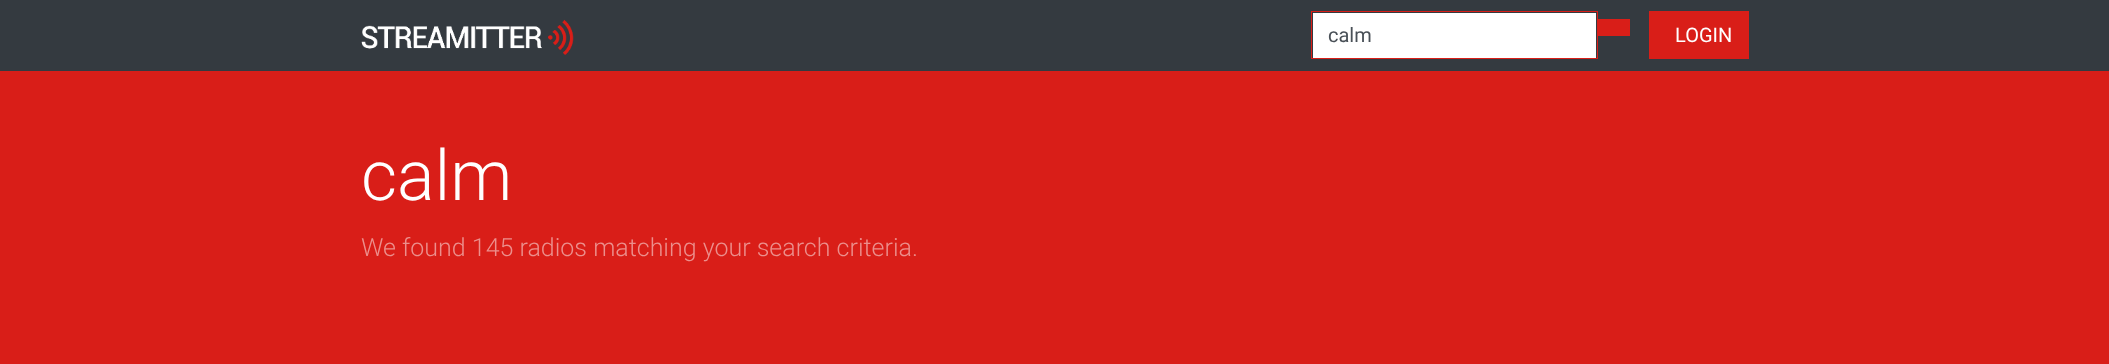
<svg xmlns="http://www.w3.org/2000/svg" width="2109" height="364">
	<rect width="100%" height="100%" fill="#D91E18" />
	<rect x="0" y="0" width="2109" height="71" fill="#343A40" />
	<image x="361" y="19" width="213" height="36" href="assets/img1.png" />
	<rect x="1313" y="13" width="283" height="45" fill="#FFFFFF" />
	<rect x="1311.5" y="11.5" width="286" height="47" fill="none" stroke="#D91E18" />
	<text x="1328" y="42" font-family="Roboto" font-size="20" fill="#495057">calm</text>
	<rect x="1598" y="19" width="32" height="17" fill="#D91E18" />
	<rect x="1649" y="11" width="100" height="48" fill="#D91E18" />
	<text x="1675" y="42" font-family="Roboto" font-size="20" fill="#FFFFFF">LOGIN</text>
	<text x="361" y="200" font-family="Roboto" font-size="70" font-weight="300" fill="#FFFFFF">calm</text>
	<text x="361" y="256" font-family="Roboto" font-size="25" font-weight="300" fill="#EC8F8C">We found 145 radios matching your search criteria.</text>
</svg>
